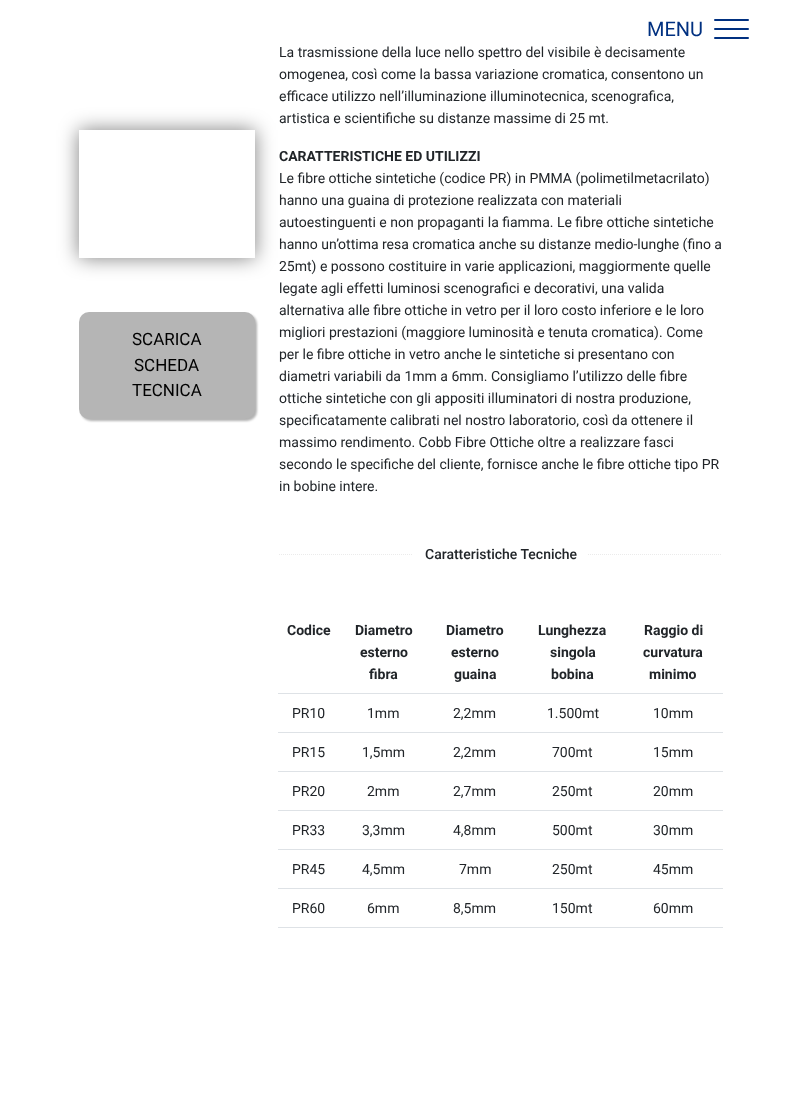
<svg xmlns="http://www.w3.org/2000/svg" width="801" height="1094">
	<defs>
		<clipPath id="clip1"><path d="M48 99H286V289H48ZM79 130H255V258H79Z" clip-rule="evenodd" /></clipPath>
	</defs>
	<rect width="100%" height="100%" fill="#FFFFFF" />
	<text x="647" y="36" font-family="Roboto" font-size="20" fill="#003080">MENU</text>
	<rect x="714" y="19" width="35" height="2" rx="1" fill="#003080" />
	<rect x="714" y="28" width="35" height="2" rx="1" fill="#003080" />
	<rect x="714" y="37" width="35" height="2" rx="1" fill="#003080" />
	<g clip-path="url(#clip1)">
		<rect x="79" y="130" width="176" height="128" fill="#000000" fill-opacity="0.5" filter="blur(10px)" />
	</g>
	<rect x="81" y="314" width="176" height="107" rx="10" fill="#000000" fill-opacity="0.3" filter="blur(1px)" />
	<rect x="79" y="312" width="176" height="107" rx="10" fill="#B5B5B5" />
	<g font-family="Roboto" font-size="17" fill="#000000">
		<text x="132" y="345">SCARICA</text>
		<text x="134" y="371">SCHEDA</text>
		<text x="132" y="396">TECNICA</text>
	</g>
	<g font-family="Roboto" font-size="14" fill="#212529">
		<text x="279" y="57">La trasmissione della luce nello spettro del visibile è decisamente</text>
		<text x="279" y="79">omogenea, così come la bassa variazione cromatica, consentono un</text>
		<text x="279" y="101">efficace utilizzo nell’illuminazione illuminotecnica, scenografica,</text>
		<text x="279" y="123">artistica e scientifiche su distanze massime di 25 mt.</text>
	</g>
	<text x="279" y="161" font-family="Roboto" font-size="14" font-weight="700" fill="#212529">CARATTERISTICHE ED UTILIZZI</text>
	<g font-family="Roboto" font-size="14" fill="#212529">
		<text x="279" y="183">Le fibre ottiche sintetiche (codice PR) in PMMA (polimetilmetacrilato)</text>
		<text x="279" y="205">hanno una guaina di protezione realizzata con materiali</text>
		<text x="279" y="227">autoestinguenti e non propaganti la fiamma. Le fibre ottiche sintetiche</text>
		<text x="279" y="249">hanno un’ottima resa cromatica anche su distanze medio-lunghe (fino a</text>
		<text x="279" y="271">25mt) e possono costituire in varie applicazioni, maggiormente quelle</text>
		<text x="279" y="293">legate agli effetti luminosi scenografici e decorativi, una valida</text>
		<text x="279" y="315">alternativa alle fibre ottiche in vetro per il loro costo inferiore e le loro</text>
		<text x="279" y="337">migliori prestazioni (maggiore luminosità e tenuta cromatica). Come</text>
		<text x="279" y="359">per le fibre ottiche in vetro anche le sintetiche si presentano con</text>
		<text x="279" y="381">diametri variabili da 1mm a 6mm. Consigliamo l’utilizzo delle fibre</text>
		<text x="279" y="403">ottiche sintetiche con gli appositi illuminatori di nostra produzione,</text>
		<text x="279" y="425">specificatamente calibrati nel nostro laboratorio, così da ottenere il</text>
		<text x="279" y="447">massimo rendimento. Cobb Fibre Ottiche oltre a realizzare fasci</text>
		<text x="279" y="469">secondo le specifiche del cliente, fornisce anche le fibre ottiche tipo PR</text>
		<text x="279" y="491">in bobine intere.</text>
	</g>
	<path d="M279 554.5H413" fill="none" stroke="#EBEBEB" stroke-dasharray="1 1" />
	<text x="425" y="559" font-family="Roboto" font-size="14" font-weight="500" fill="#212529">Caratteristiche Tecniche</text>
	<path d="M588 554.5H722" fill="none" stroke="#EBEBEB" stroke-dasharray="1 1" />
	<g font-family="Roboto" font-size="14" font-weight="700" fill="#212529">
		<text x="287" y="635">Codice</text>
		<text x="355" y="635">Diametro</text>
		<text x="360" y="657">esterno</text>
		<text x="369" y="679">fibra</text>
		<text x="446" y="635">Diametro</text>
		<text x="451" y="657">esterno</text>
		<text x="454" y="679">guaina</text>
		<text x="538" y="635">Lunghezza</text>
		<text x="550" y="657">singola</text>
		<text x="551" y="679">bobina</text>
	</g>
	<rect x="278" y="693" width="445" height="1" fill="#DEE2E6" />
	<g font-family="Roboto" font-size="14" font-weight="700" fill="#212529">
		<text x="644" y="635">Raggio di</text>
		<text x="643" y="657">curvatura</text>
		<text x="649" y="679">minimo</text>
	</g>
	<g font-family="Roboto" font-size="14" fill="#212529">
		<text x="292" y="718">PR10</text>
		<text x="367" y="718">1mm</text>
		<text x="453" y="718">2,2mm</text>
		<text x="547" y="718">1.500mt</text>
	</g>
	<rect x="278" y="732" width="445" height="1" fill="#DEE2E6" />
	<g font-family="Roboto" font-size="14" fill="#212529">
		<text x="653" y="718">10mm</text>
		<text x="292" y="757">PR15</text>
		<text x="362" y="757">1,5mm</text>
		<text x="453" y="757">2,2mm</text>
		<text x="552" y="757">700mt</text>
	</g>
	<rect x="278" y="771" width="445" height="1" fill="#DEE2E6" />
	<g font-family="Roboto" font-size="14" fill="#212529">
		<text x="653" y="757">15mm</text>
		<text x="292" y="796">PR20</text>
		<text x="367" y="796">2mm</text>
		<text x="453" y="796">2,7mm</text>
		<text x="552" y="796">250mt</text>
	</g>
	<rect x="278" y="810" width="445" height="1" fill="#DEE2E6" />
	<g font-family="Roboto" font-size="14" fill="#212529">
		<text x="653" y="796">20mm</text>
		<text x="292" y="835">PR33</text>
		<text x="362" y="835">3,3mm</text>
		<text x="453" y="835">4,8mm</text>
		<text x="552" y="835">500mt</text>
	</g>
	<rect x="278" y="849" width="445" height="1" fill="#DEE2E6" />
	<g font-family="Roboto" font-size="14" fill="#212529">
		<text x="653" y="835">30mm</text>
		<text x="292" y="874">PR45</text>
		<text x="362" y="874">4,5mm</text>
		<text x="459" y="874">7mm</text>
		<text x="552" y="874">250mt</text>
	</g>
	<rect x="278" y="888" width="445" height="1" fill="#DEE2E6" />
	<g font-family="Roboto" font-size="14" fill="#212529">
		<text x="653" y="874">45mm</text>
		<text x="292" y="913">PR60</text>
		<text x="367" y="913">6mm</text>
		<text x="453" y="913">8,5mm</text>
		<text x="552" y="913">150mt</text>
	</g>
	<rect x="278" y="927" width="445" height="1" fill="#DEE2E6" />
	<text x="653" y="913" font-family="Roboto" font-size="14" fill="#212529">60mm</text>
</svg>
